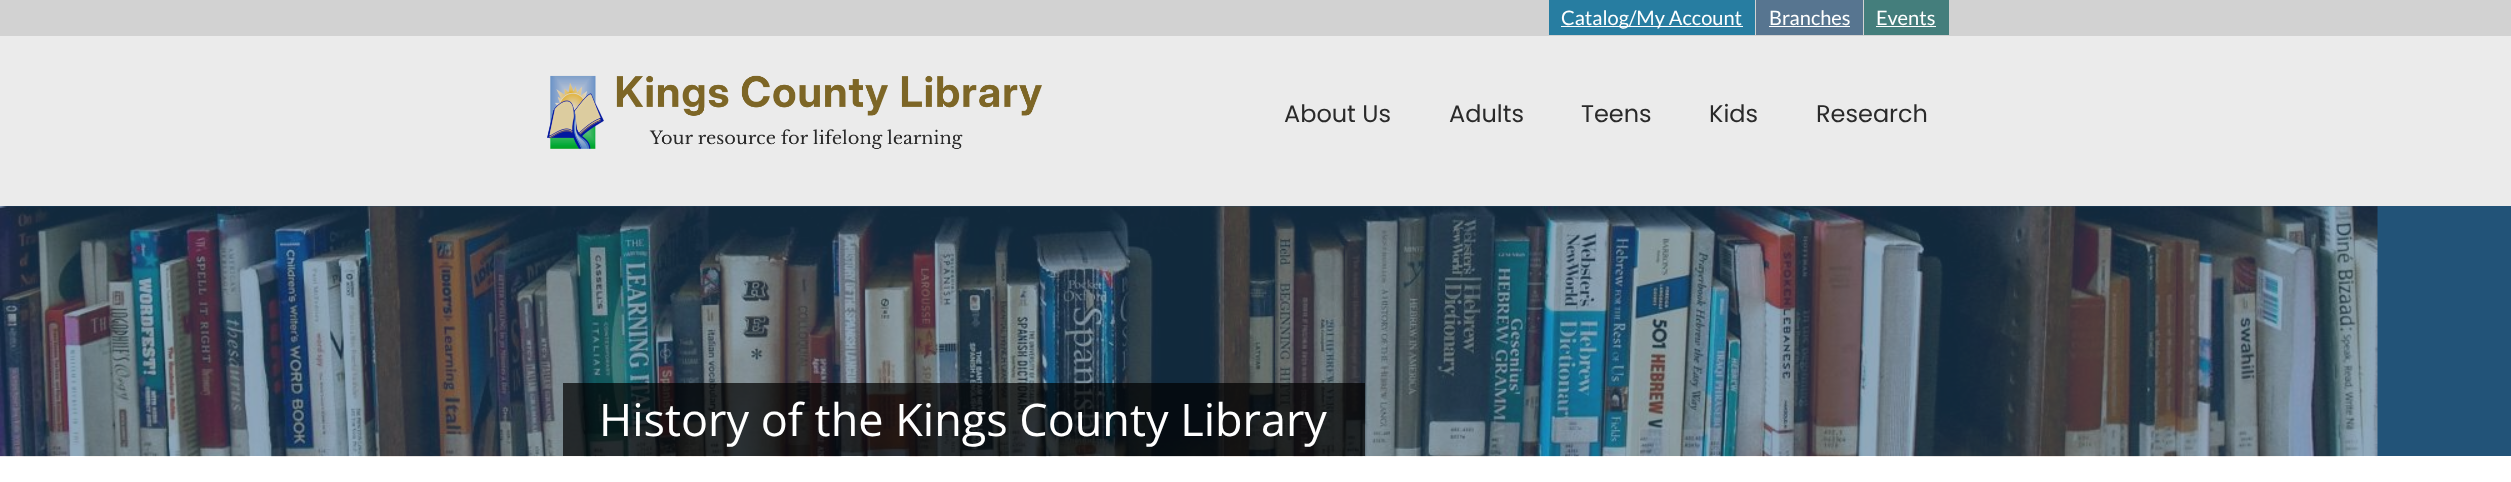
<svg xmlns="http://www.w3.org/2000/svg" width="2511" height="482">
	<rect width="100%" height="100%" fill="#FFFFFF" />
	<rect x="0" y="0" width="2511" height="36" fill="#D2D2D2" />
	<rect x="1549" y="0" width="206" height="35" fill="#277DA1" />
	<rect x="1561" y="26" width="182" height="1" fill="#FFFFFF" />
	<text x="1561" y="25" font-family="Lato" font-size="20" fill="#FFFFFF">Catalog/My Account</text>
	<rect x="1756" y="0" width="107" height="35" fill="#577590" />
	<text x="1769" y="25" font-family="Lato" font-size="20" fill="#FFFFFF">Branches</text>
	<rect x="1769" y="26" width="81" height="1" fill="#FFFFFF" />
	<rect x="1864" y="0" width="85" height="35" fill="#447E7C" />
	<text x="1876" y="25" font-family="Lato" font-size="20" fill="#FFFFFF">Events</text>
	<rect x="1876" y="26" width="60" height="1" fill="#FFFFFF" />
	<rect x="0" y="36" width="2511" height="170" fill="#EBEBEB" />
	<image x="547" y="75" width="495" height="74" href="assets/img1.png" />
	<g font-family="Poppins" font-size="24" fill="#2A2A2A">
		<text x="1284" y="122">About Us</text>
		<text x="1449" y="122">Adults</text>
		<text x="1581" y="122">Teens</text>
		<text x="1709" y="122">Kids</text>
		<text x="1816" y="122">Research</text>
	</g>
	<rect x="0" y="206" width="2511" height="250" fill="#225378" />
	<image x="0" y="206" width="2378" height="251" href="assets/img2.png" />
	<rect x="563" y="383" width="802" height="73" fill="#000000" fill-opacity="0.7" />
	<text x="599" y="436" font-family="Open Sans" font-size="45" fill="#FFFFFF">History of the Kings County Library</text>
</svg>
